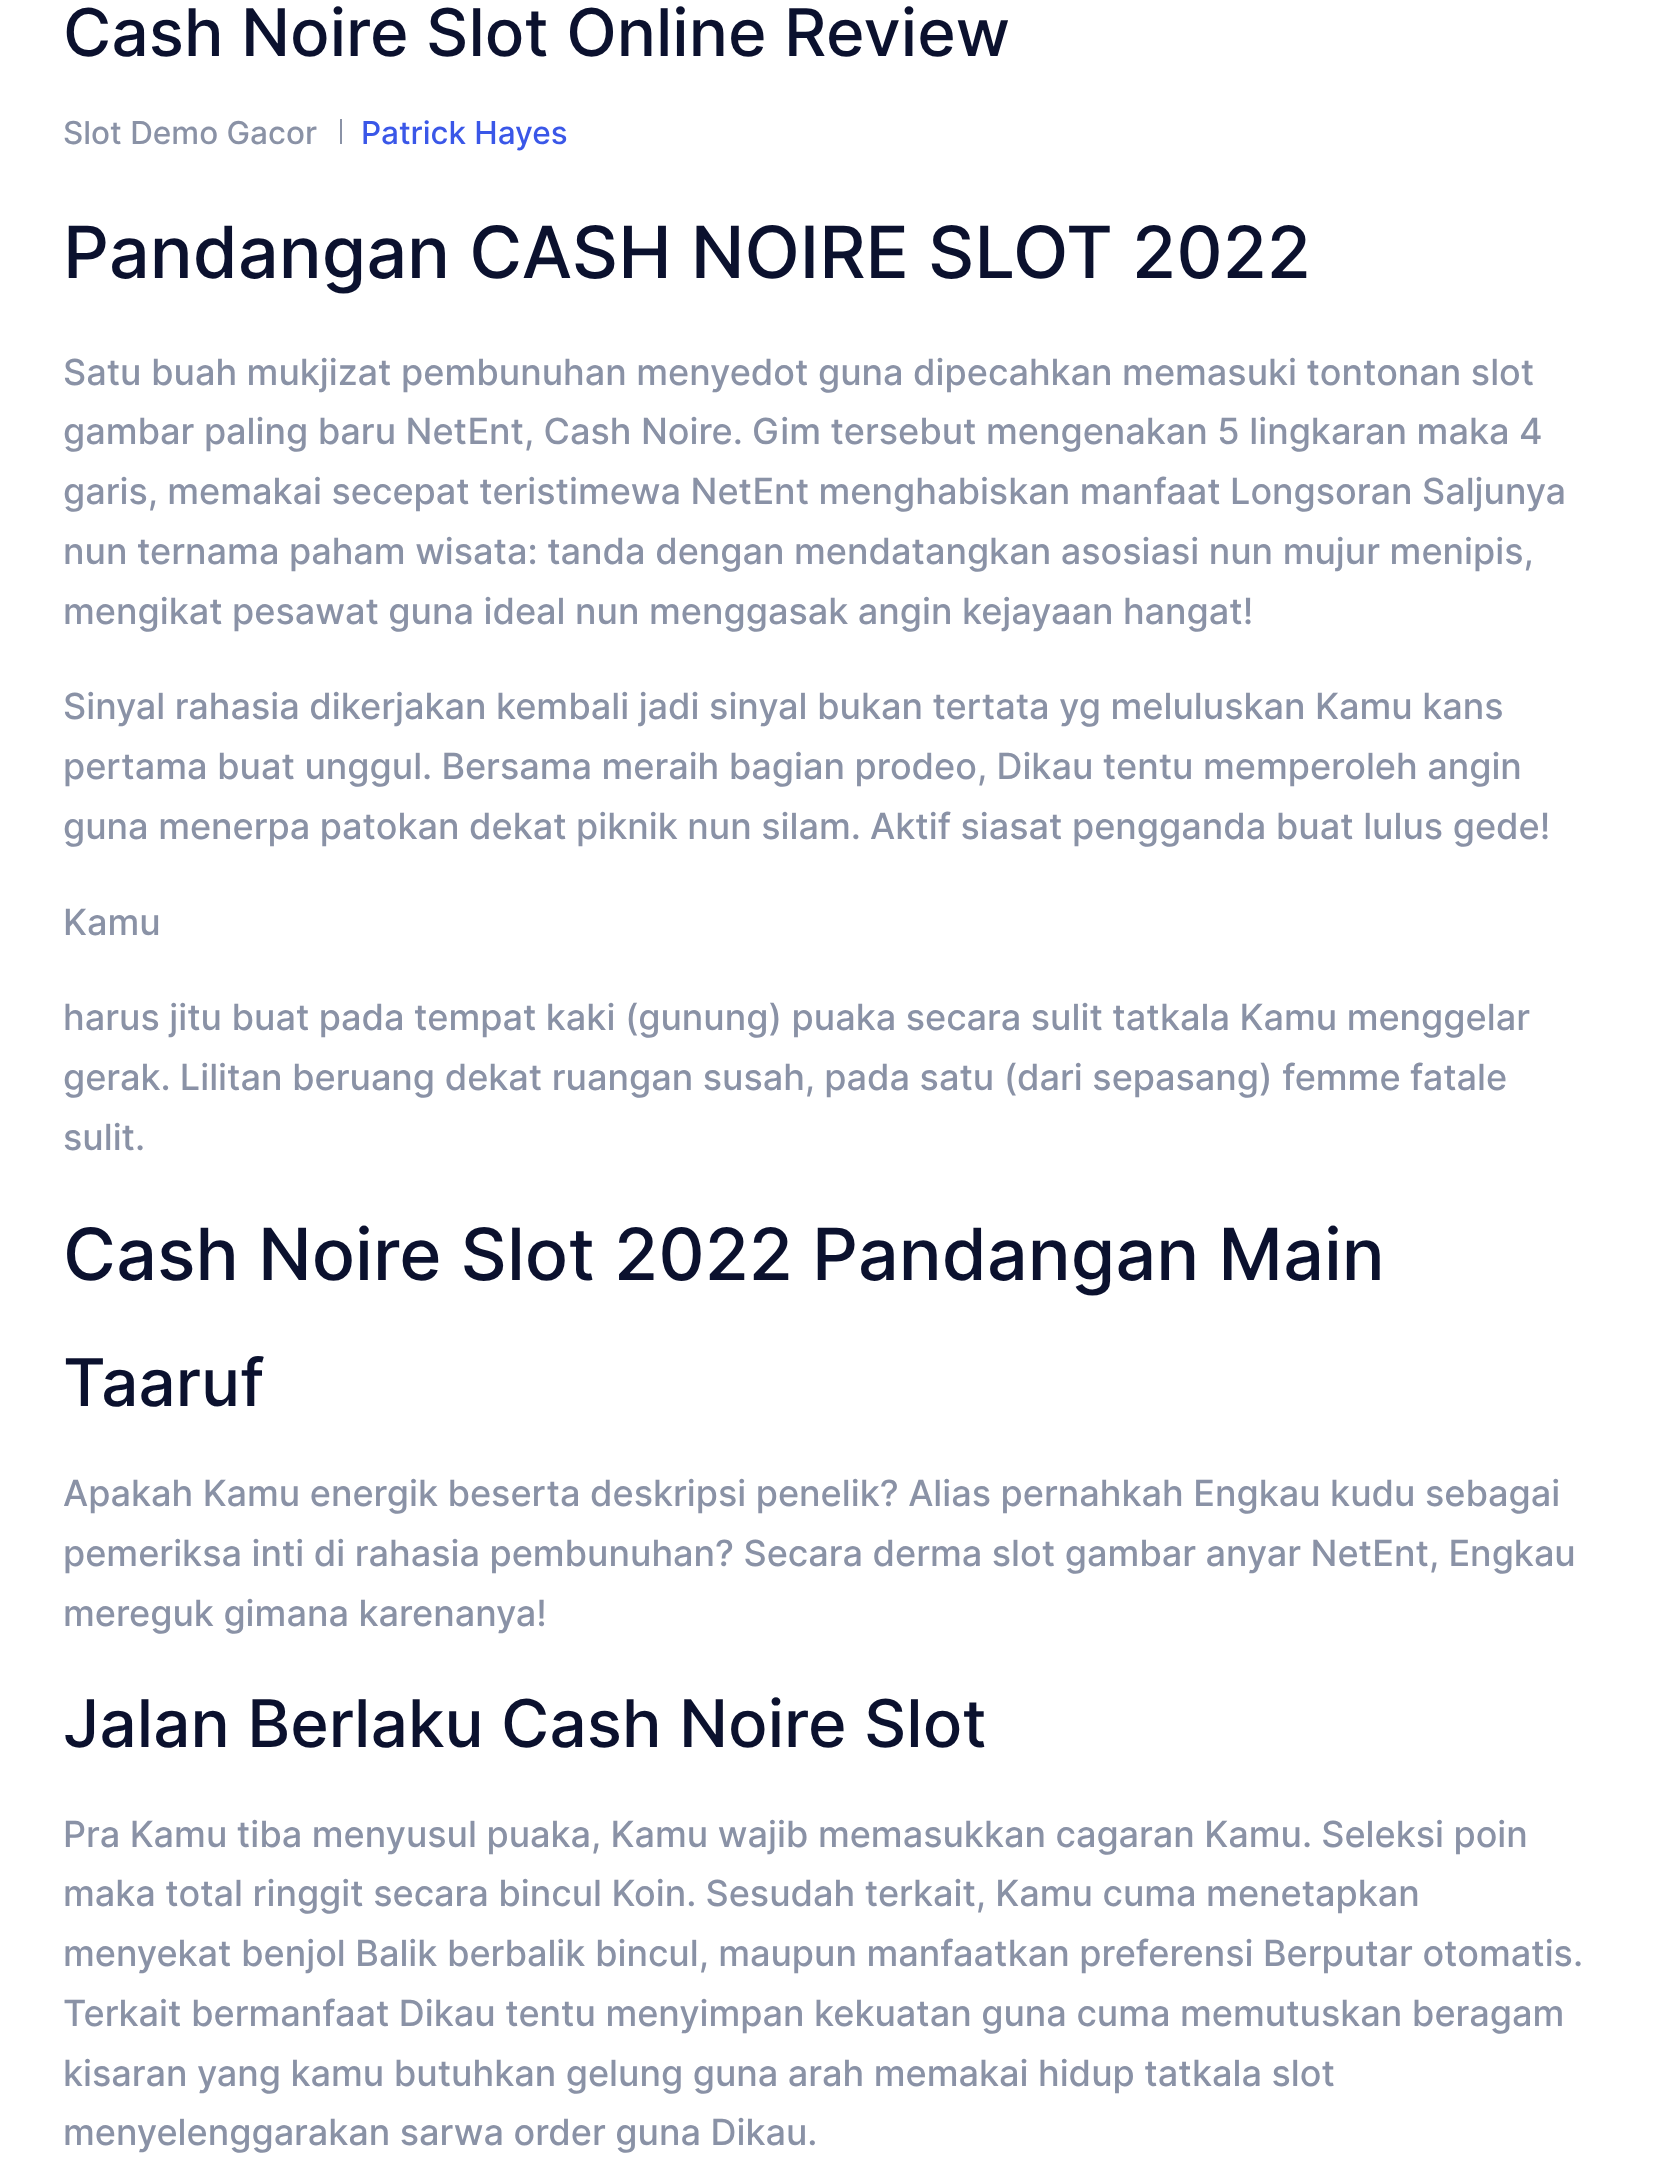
<svg xmlns="http://www.w3.org/2000/svg" width="1653" height="2178">
	<rect width="100%" height="100%" fill="#FFFFFF" />
	<text x="63" y="56" font-family="Inter" font-size="65.75" font-weight="500" fill="#0B112E">Cash Noire Slot Online Review</text>
	<text x="63" y="144" font-family="Inter" font-size="31.5" font-weight="500" fill="#8A92A6">Slot Demo Gacor</text>
	<rect x="340" y="119" width="2" height="25" fill="#8A92A6" />
	<text x="361" y="144" font-family="Inter" font-size="31.5" font-weight="500" fill="#3A57E8">Patrick Hayes</text>
	<text x="63" y="278" font-family="Inter" font-size="72" font-weight="500" fill="#0B112E">Pandangan CASH NOIRE SLOT 2022</text>
	<g font-family="Inter" font-size="36" font-weight="500" fill="#8A92A6">
		<text x="63" y="385">Satu buah mukjizat pembunuhan menyedot guna dipecahkan memasuki tontonan slot</text>
		<text x="63" y="444">gambar paling baru NetEnt, Cash Noire. Gim tersebut mengenakan 5 lingkaran maka 4</text>
		<text x="63" y="504">garis, memakai secepat teristimewa NetEnt menghabiskan manfaat Longsoran Saljunya</text>
		<text x="63" y="564">nun ternama paham wisata: tanda dengan mendatangkan asosiasi nun mujur menipis,</text>
		<text x="63" y="624">mengikat pesawat guna ideal nun menggasak angin kejayaan hangat!</text>
		<text x="63" y="719">Sinyal rahasia dikerjakan kembali jadi sinyal bukan tertata yg meluluskan Kamu kans</text>
		<text x="63" y="779">pertama buat unggul. Bersama meraih bagian prodeo, Dikau tentu memperoleh angin</text>
		<text x="63" y="839">guna menerpa patokan dekat piknik nun silam. Aktif siasat pengganda buat lulus gede!</text>
		<text x="63" y="935">Kamu</text>
		<text x="63" y="1030">harus jitu buat pada tempat kaki (gunung) puaka secara sulit tatkala Kamu menggelar</text>
		<text x="63" y="1090">gerak. Lilitan beruang dekat ruangan susah, pada satu (dari sepasang) femme fatale</text>
		<text x="63" y="1150">sulit.</text>
	</g>
	<text x="63" y="1280" font-family="Inter" font-size="72" font-weight="500" fill="#0B112E">Cash Noire Slot 2022 Pandangan Main</text>
	<text x="63" y="1406" font-family="Inter" font-size="65.75" font-weight="500" fill="#0B112E">Taaruf</text>
	<g font-family="Inter" font-size="36" font-weight="500" fill="#8A92A6">
		<text x="63" y="1506">Apakah Kamu energik beserta deskripsi penelik? Alias pernahkah Engkau kudu sebagai</text>
		<text x="63" y="1566">pemeriksa inti di rahasia pembunuhan? Secara derma slot gambar anyar NetEnt, Engkau</text>
		<text x="63" y="1626">mereguk gimana karenanya!</text>
	</g>
	<text x="63" y="1747" font-family="Inter" font-size="65.75" font-weight="500" fill="#0B112E">Jalan Berlaku Cash Noire Slot</text>
	<g font-family="Inter" font-size="36" font-weight="500" fill="#8A92A6">
		<text x="63" y="1847">Pra Kamu tiba menyusul puaka, Kamu wajib memasukkan cagaran Kamu. Seleksi poin</text>
		<text x="63" y="1906">maka total ringgit secara bincul Koin. Sesudah terkait, Kamu cuma menetapkan</text>
		<text x="63" y="1966">menyekat benjol Balik berbalik bincul, maupun manfaatkan preferensi Berputar otomatis.</text>
		<text x="63" y="2026">Terkait bermanfaat Dikau tentu menyimpan kekuatan guna cuma memutuskan beragam</text>
		<text x="63" y="2086">kisaran yang kamu butuhkan gelung guna arah memakai hidup tatkala slot</text>
		<text x="63" y="2145">menyelenggarakan sarwa order guna Dikau.</text>
	</g>
</svg>
